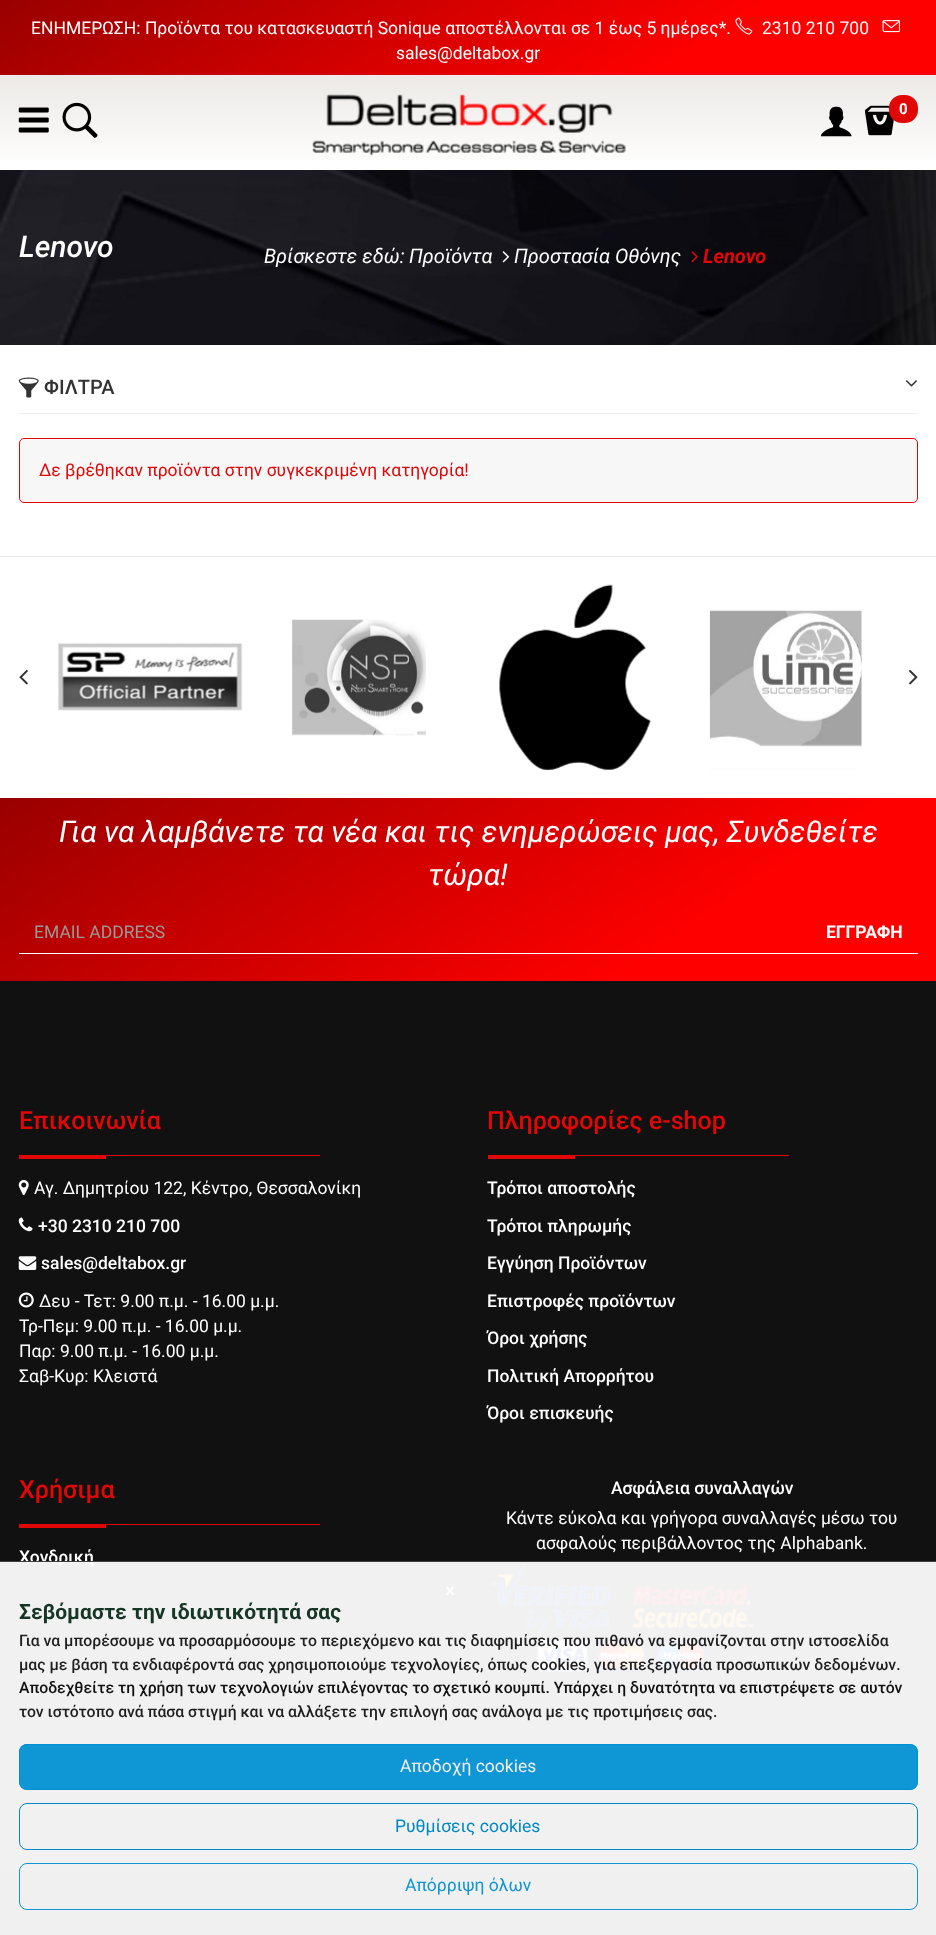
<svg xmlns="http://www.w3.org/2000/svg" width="936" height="1935">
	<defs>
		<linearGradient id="g1" gradientUnits="userSpaceOnUse" x1="312" y1="-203" x2="624" y2="278"><stop offset="0" stop-color="#990000" /><stop offset="0.74" stop-color="#FF0000" /></linearGradient>
		<linearGradient id="g2" gradientUnits="userSpaceOnUse" x1="468" y1="170" x2="468" y2="75"><stop offset="0" stop-color="#FFFFFF" /><stop offset="1" stop-color="#ECE9E6" /></linearGradient>
		<linearGradient id="g3" gradientUnits="userSpaceOnUse" x1="287" y1="611" x2="649" y2="1168"><stop offset="0" stop-color="#990000" /><stop offset="0.74" stop-color="#FF0000" /></linearGradient>
	</defs>
	<rect width="100%" height="100%" fill="#FFFFFF" />
	<rect x="0" y="0" width="936" height="75" fill="url(#g1)" />
	<text x="31" y="34" font-family="Roboto" font-size="17.5" fill="#FFFFFF">ΕΝΗΜΕΡΩΣΗ: Προϊόντα του κατασκευαστή Sonique αποστέλλονται σε 1 έως 5 ημέρες*.</text>
	<image x="735" y="17" width="18" height="18" href="assets/img1.png" />
	<text x="762" y="34" font-family="Roboto" font-size="17.5" fill="#FFFFFF">2310 210 700</text>
	<image x="882" y="20" width="18" height="13" href="assets/img2.png" />
	<text x="396" y="59" font-family="Roboto" font-size="17.5" fill="#FFFFFF">sales@deltabox.gr</text>
	<rect x="0" y="75" width="936" height="85" fill="url(#g2)" />
	<image x="312" y="94" width="314" height="62" href="assets/img3.png" />
	<image x="18" y="107" width="31" height="26" href="assets/img4.png" />
	<image x="62" y="102" width="36" height="36" href="assets/img5.png" />
	<image x="821" y="106" width="31" height="31" href="assets/img6.png" />
	<image x="864" y="105" width="30" height="31" href="assets/img7.png" />
	<rect x="889" y="95" width="29" height="28" rx="13" fill="#E10707" />
	<text x="899" y="114" font-family="Roboto" font-size="15" font-weight="700" fill="#FFFFFF">0</text>
	<image x="0" y="170" width="936" height="175" href="assets/img8.png" />
	<text x="19" y="257" font-family="Roboto" font-size="30" font-weight="500" font-style="italic" fill="#FFFFFF">Lenovo</text>
	<g font-family="Roboto" font-size="20" font-style="italic" fill="#FFFFFF">
		<text x="264" y="263">Βρίσκεστε εδώ:</text>
		<text x="409" y="263">Προϊόντα</text>
	</g>
	<image x="502" y="251" width="8" height="12" href="assets/img9.png" />
	<text x="514" y="263" font-family="Roboto" font-size="20" font-style="italic" fill="#FFFFFF">Προστασία Οθόνης</text>
	<image x="691" y="251" width="7" height="12" href="assets/img10.png" />
	<text x="703" y="263" font-family="Roboto" font-size="20" font-weight="700" font-style="italic" fill="#E10707">Lenovo</text>
	<image x="18" y="377" width="21" height="21" href="assets/img11.png" />
	<text x="44" y="394" font-family="Roboto" font-size="20" font-weight="500" fill="#333333">ΦΙΛΤΡΑ</text>
	<image x="905" y="380" width="12" height="7" href="assets/img12.png" />
	<rect x="19" y="413" width="899" height="1" fill="#EEEEEE" />
	<rect x="19.5" y="438.5" width="898" height="64" rx="4.5" fill="#F7F7F7" stroke="#E10707" />
	<text x="39" y="476" font-family="Roboto" font-size="17.5" fill="#E10707">Δε βρέθηκαν προϊόντα στην συγκεκριμένη κατηγορία!</text>
	<rect x="0" y="556" width="936" height="1" fill="#EBEBEB" />
	<image x="19" y="669" width="9" height="16" href="assets/img13.png" />
	<image x="57" y="643" width="186" height="68" href="assets/img14.png" />
	<image x="292" y="619" width="134" height="117" href="assets/img15.png" />
	<image x="499" y="584" width="152" height="187" href="assets/img16.png" />
	<image x="709" y="610" width="153" height="160" href="assets/img17.png" />
	<image x="909" y="669" width="9" height="16" href="assets/img18.png" />
	<rect x="0" y="798" width="936" height="183" fill="url(#g3)" />
	<g font-family="Roboto" font-size="30" font-style="italic" fill="#FFFFFF">
		<text x="59" y="842">Για να λαμβάνετε τα νέα και τις ενημερώσεις μας, Συνδεθείτε</text>
		<text x="428" y="885">τώρα!</text>
	</g>
	<rect x="19" y="953" width="899" height="1" fill="#FFFFFF" />
	<text x="34" y="938" font-family="Roboto" font-size="17.5" fill="#999999">EMAIL ADDRESS</text>
	<text x="826" y="938" font-family="Roboto" font-size="17.5" font-weight="700" fill="#FFFFFF">ΕΓΓΡΑΦΗ</text>
	<rect x="0" y="981" width="936" height="888" fill="#111111" />
	<rect x="106" y="1155" width="214" height="1" fill="#E10707" />
	<text x="19" y="1129" font-family="Roboto" font-size="25" font-weight="500" fill="#E10707">Επικοινωνία</text>
	<rect x="19" y="1155" width="87" height="4" fill="#E10707" />
	<image x="18" y="1180" width="11" height="15" href="assets/img19.png" />
	<text x="34" y="1194" font-family="Roboto" font-size="17.5" fill="#FFFFFF">Αγ. Δημητρίου 122, Κέντρο, Θεσσαλονίκη</text>
	<image x="18" y="1217" width="15" height="15" href="assets/img20.png" />
	<text x="38" y="1232" font-family="Roboto" font-size="17.5" font-weight="500" fill="#FFFFFF">+30 2310 210 700</text>
	<image x="18" y="1256" width="19" height="14" href="assets/img21.png" />
	<text x="41" y="1269" font-family="Roboto" font-size="17.5" font-weight="500" fill="#FFFFFF">sales@deltabox.gr</text>
	<image x="18" y="1292" width="16" height="16" href="assets/img22.png" />
	<g font-family="Roboto" font-size="17.5" fill="#FFFFFF">
		<text x="39" y="1307">Δευ - Τετ: 9.00 π.μ. - 16.00 μ.μ.</text>
		<text x="19" y="1332">Τρ-Πεμ: 9.00 π.μ. - 16.00 μ.μ.</text>
		<text x="19" y="1357">Παρ: 9.00 π.μ. - 16.00 μ.μ.</text>
		<text x="19" y="1382">Σαβ-Κυρ: Κλειστά</text>
	</g>
	<rect x="575" y="1155" width="214" height="1" fill="#E10707" />
	<text x="487" y="1129" font-family="Roboto" font-size="25" font-weight="500" fill="#E10707">Πληροφορίες e-shop</text>
	<rect x="488" y="1155" width="87" height="4" fill="#E10707" />
	<g font-family="Roboto" font-size="17.5" font-weight="500" fill="#FFFFFF">
		<text x="487" y="1194">Τρόποι αποστολής</text>
		<text x="487" y="1232">Τρόποι πληρωμής</text>
		<text x="487" y="1269">Εγγύηση Προϊόντων</text>
		<text x="487" y="1307">Επιστροφές προϊόντων</text>
		<text x="487" y="1344">Όροι χρήσης</text>
		<text x="487" y="1382">Πολιτική Απορρήτου</text>
		<text x="487" y="1419">Όροι επισκευής</text>
	</g>
	<rect x="106" y="1524" width="214" height="1" fill="#E10707" />
	<text x="19" y="1498" font-family="Roboto" font-size="25" font-weight="500" fill="#E10707">Χρήσιμα</text>
	<rect x="19" y="1524" width="87" height="4" fill="#E10707" />
	<g font-family="Roboto" font-size="17.5" font-weight="500" fill="#FFFFFF">
		<text x="19" y="1563">Χονδρική</text>
		<text x="611" y="1494">Ασφάλεια συναλλαγών</text>
	</g>
	<g font-family="Roboto" font-size="17.5" fill="#FFFFFF">
		<text x="506" y="1524">Κάντε εύκολα και γρήγορα συναλλαγές μέσω του</text>
		<text x="536" y="1549">ασφαλούς περιβάλλοντος της Alphabank.</text>
	</g>
	<image x="491" y="1565" width="263" height="107" href="assets/img23.png" />
	<rect x="0" y="1870" width="936" height="65" fill="#000000" />
	<rect x="0" y="1869" width="936" height="1" fill="#333333" />
	<rect x="0" y="1561" width="936" height="374" fill="#FFFFFF" fill-opacity="0.94" />
	<rect x="0" y="1561" width="936" height="1" fill="#333333" fill-opacity="0.94" />
	<text x="19" y="1619" font-family="Roboto" font-size="21" font-weight="700" fill="#163625">Σεβόμαστε την ιδιωτικότητά σας</text>
	<g font-family="Roboto" font-size="15.75" font-weight="500" fill="#1F1F1F">
		<text x="19" y="1646">Για να μπορέσουμε να προσαρμόσουμε το περιεχόμενο και τις διαφημίσεις που πιθανό να εμφανίζονται στην ιστοσελίδα</text>
		<text x="19" y="1670">μας με βάση τα ενδιαφέροντά σας χρησιμοποιούμε τεχνολογίες, όπως cookies, για επεξεργασία προσωπικών δεδομένων.</text>
	</g>
	<text x="19" y="1693" font-family="Roboto" font-size="15.75" font-weight="500" fill="#111111">Αποδεχθείτε τη χρήση των τεχνολογιών επιλέγοντας το σχετικό κουμπί. Υπάρχει η δυνατότητα να επιστρέψετε σε αυτόν</text>
	<text x="19" y="1717" font-family="Roboto" font-size="15.75" font-weight="500" fill="#1F1F1F">τον ιστότοπο ανά πάσα στιγμή και να αλλάξετε την επιλογή σας ανάλογα με τις προτιμήσεις σας.</text>
	<image x="446" y="1586" width="8" height="9" href="assets/img24.png" />
	<rect x="19" y="1744" width="899" height="46" rx="8" fill="#008FD1" fill-opacity="0.94" />
	<rect x="19.5" y="1744.5" width="898" height="45" rx="7.5" fill="none" stroke="#008FD1" stroke-opacity="0.94" />
	<text x="400" y="1772" font-family="Roboto" font-size="17.5" fill="#F0F0F0">Αποδοχή cookies</text>
	<rect x="19.5" y="1803.5" width="898" height="46" rx="7.5" fill="none" stroke="#0187C5" />
	<text x="395" y="1832" font-family="Roboto" font-size="17.5" fill="#0187C5">Ρυθμίσεις cookies</text>
	<rect x="19.5" y="1863.5" width="898" height="46" rx="7.5" fill="none" stroke="#008FD1" stroke-opacity="0.94" />
	<text x="405" y="1891" font-family="Roboto" font-size="17.5" fill="#0F95D3">Απόρριψη όλων</text>
</svg>
